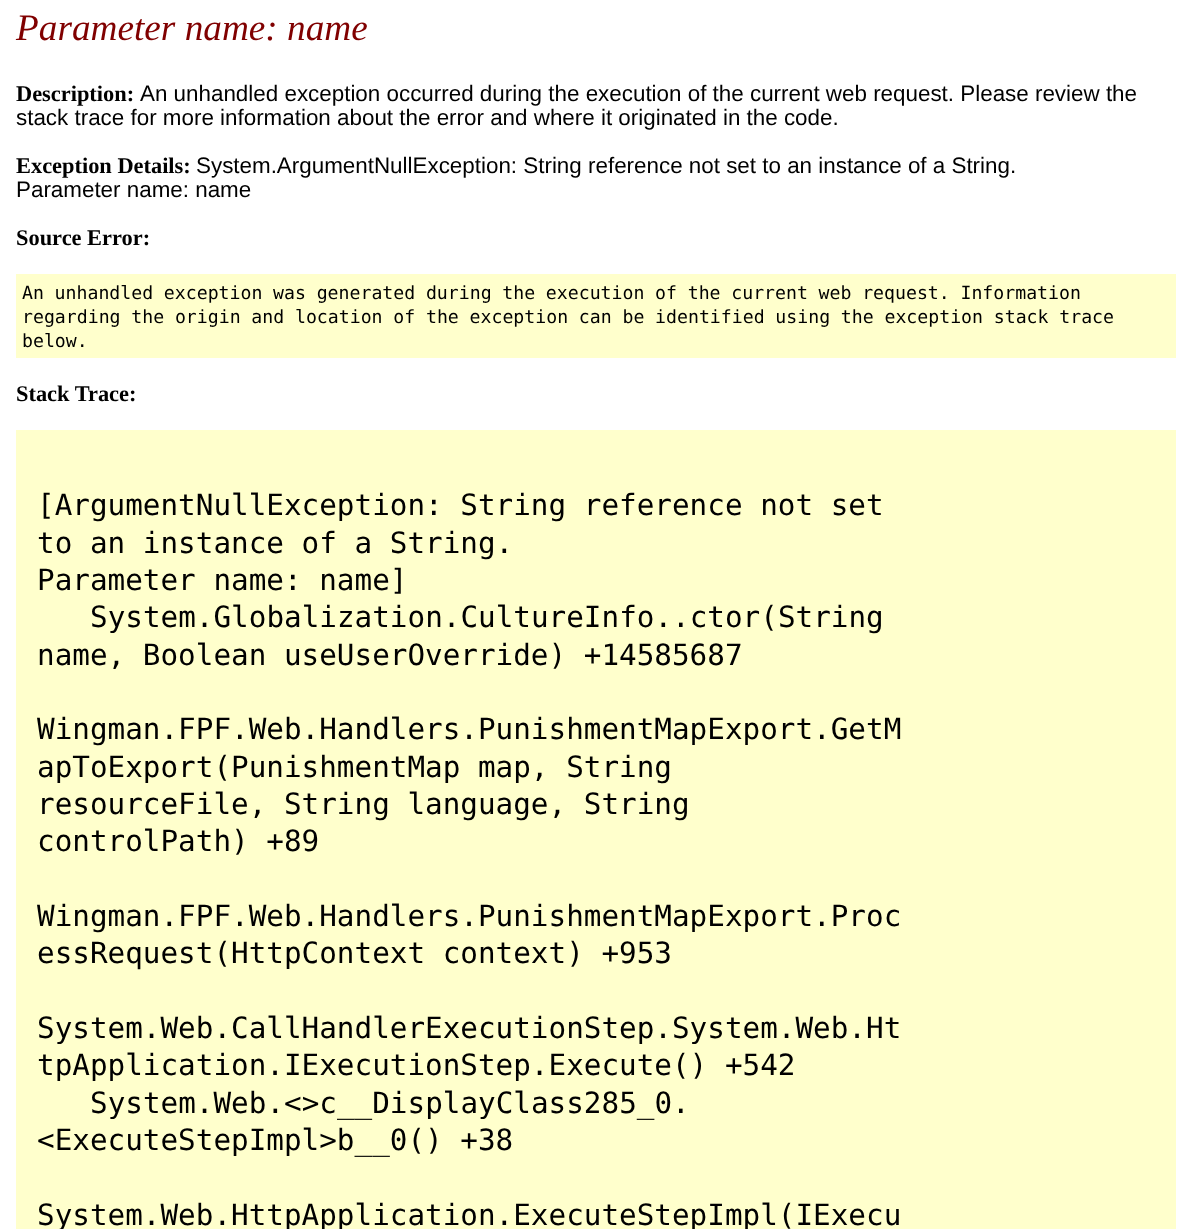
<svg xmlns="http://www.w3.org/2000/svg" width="1192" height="1229">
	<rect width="100%" height="100%" fill="#FFFFFF" />
	<text x="16" y="40" font-family="Liberation Serif" font-size="37.25" font-style="italic" fill="#800000">Parameter name: name</text>
	<text x="16" y="101" font-family="Liberation Serif" font-size="22.4" font-weight="700" fill="#000000">Description:</text>
	<g font-family="Liberation Sans" font-size="22.4" fill="#000000">
		<text x="140" y="101">An unhandled exception occurred during the execution of the current web request. Please review the</text>
		<text x="16" y="125">stack trace for more information about the error and where it originated in the code.</text>
	</g>
	<text x="16" y="173" font-family="Liberation Serif" font-size="22.4" font-weight="700" fill="#000000">Exception Details:</text>
	<g font-family="Liberation Sans" font-size="22.4" fill="#000000">
		<text x="196" y="173">System.ArgumentNullException: String reference not set to an instance of a String.</text>
		<text x="16" y="197">Parameter name: name</text>
	</g>
	<text x="16" y="245" font-family="Liberation Serif" font-size="22.4" font-weight="700" fill="#000000">Source Error:</text>
	<rect x="16" y="274" width="1160" height="84" fill="#FFFFCC" />
	<g font-family="DejaVu Sans Mono" font-size="18.2" fill="#000000">
		<text x="22" y="299" word-spacing="-0.25">An unhandled exception was generated during the execution of the current web request. Information</text>
		<text x="22" y="323" word-spacing="-0.2">regarding the origin and location of the exception can be identified using the exception stack trace</text>
		<text x="22" y="347">below.</text>
	</g>
	<text x="16" y="401" font-family="Liberation Serif" font-size="22.4" font-weight="700" fill="#000000">Stack Trace:</text>
	<rect x="16" y="430" width="1160" height="799" fill="#FFFFCC" />
	<g font-family="DejaVu Sans Mono" font-size="29.3" fill="#000000">
		<text x="37" y="515">[ArgumentNullException: String reference not set</text>
		<text x="37" y="553">to an instance of a String.</text>
		<text x="37" y="590">Parameter name: name]</text>
		<text x="90" y="627">System.Globalization.CultureInfo..ctor(String</text>
		<text x="37" y="665">name, Boolean useUserOverride) +14585687</text>
		<text x="37" y="739">Wingman.FPF.Web.Handlers.PunishmentMapExport.GetM</text>
		<text x="37" y="777">apToExport(PunishmentMap map, String</text>
		<text x="37" y="814">resourceFile, String language, String</text>
		<text x="37" y="851">controlPath) +89</text>
		<text x="37" y="926">Wingman.FPF.Web.Handlers.PunishmentMapExport.Proc</text>
		<text x="37" y="963">essRequest(HttpContext context) +953</text>
		<text x="37" y="1038">System.Web.CallHandlerExecutionStep.System.Web.Ht</text>
		<text x="37" y="1075">tpApplication.IExecutionStep.Execute() +542</text>
		<text x="90" y="1113">System.Web.&lt;&gt;c__DisplayClass285_0.</text>
		<text x="37" y="1150">&lt;ExecuteStepImpl&gt;b__0() +38</text>
		<text x="37" y="1225">System.Web.HttpApplication.ExecuteStepImpl(IExecu</text>
	</g>
</svg>
